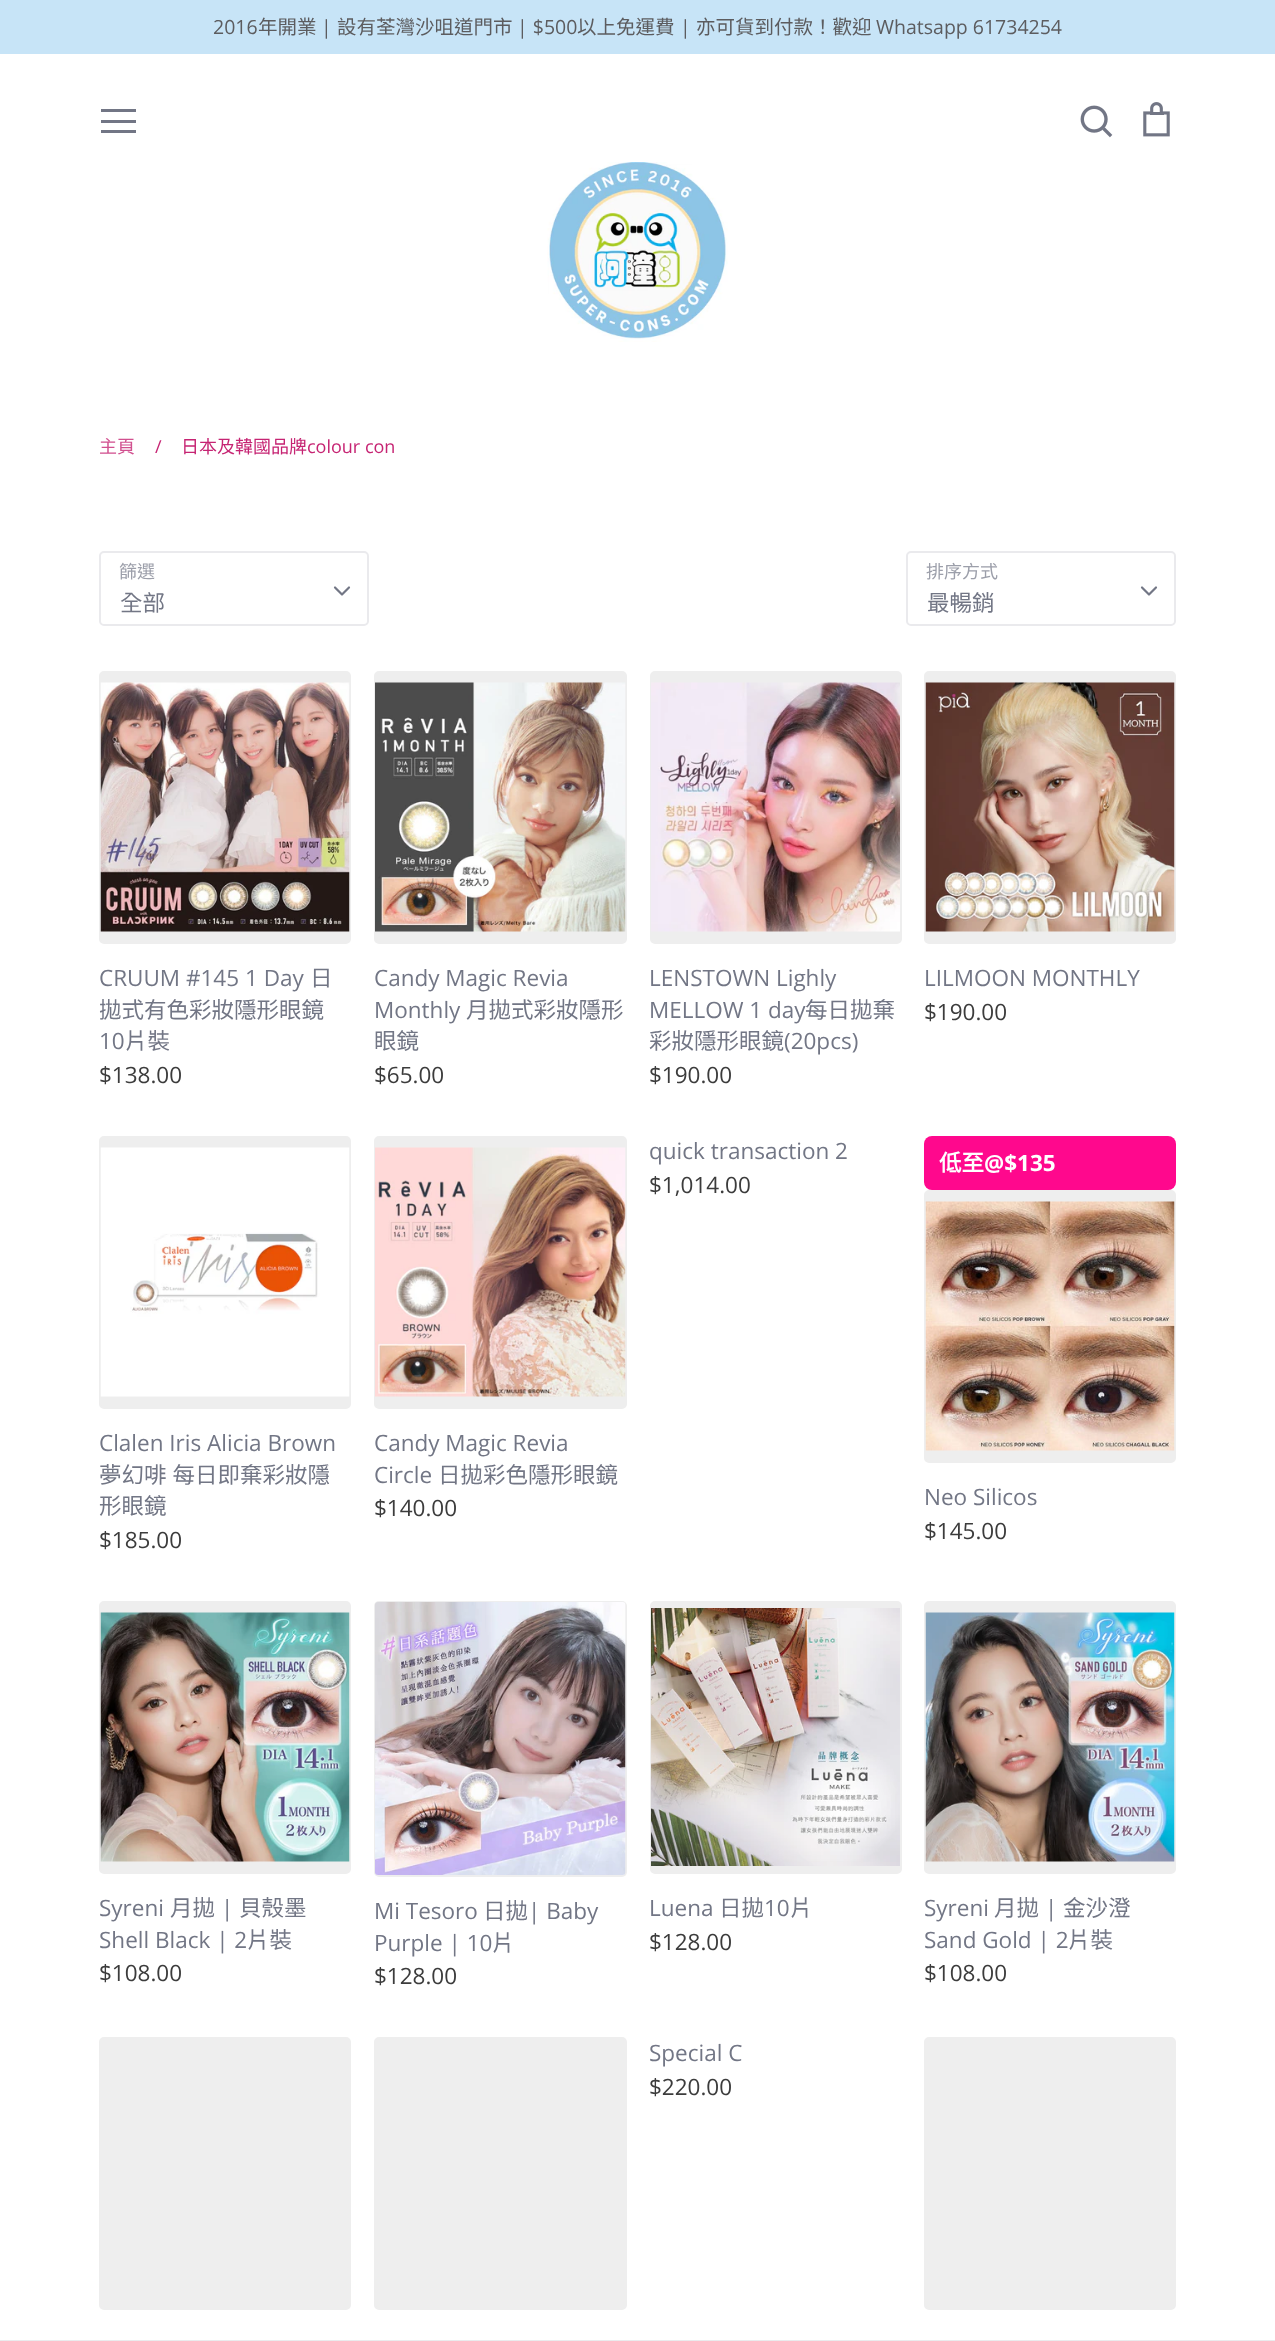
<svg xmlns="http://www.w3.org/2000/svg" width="1275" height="2341">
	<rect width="100%" height="100%" fill="#FFFFFF" />
	<rect x="0" y="0" width="1275" height="54" fill="#C7E4F7" />
	<text x="213" y="34" font-family="Open Sans" font-size="19.5" fill="#5C5C5F">2016</text>
	<text x="258" y="34" font-family="Noto Sans CJK TC" font-size="19.5" fill="#5C5C5F">年開業</text>
	<text x="321" y="34" font-family="Open Sans" font-size="19.5" fill="#5C5C5F">|</text>
	<text x="337" y="34" font-family="Noto Sans CJK TC" font-size="19.5" fill="#5C5C5F">設有荃灣沙咀道門市</text>
	<text x="517" y="34" font-family="Open Sans" font-size="19.5" fill="#5C5C5F">| $500</text>
	<text x="577" y="34" font-family="Noto Sans CJK TC" font-size="19.5" fill="#5C5C5F">以上免運費</text>
	<text x="680" y="34" font-family="Open Sans" font-size="19.5" fill="#5C5C5F">|</text>
	<text x="696" y="34" font-family="Noto Sans CJK TC" font-size="19.5" fill="#5C5C5F">亦可貨到付款！歡迎</text>
	<text x="876" y="34" font-family="Open Sans" font-size="19.5" fill="#5C5C5F">Whatsapp 61734254</text>
	<rect x="101" y="109" width="35" height="3" fill="#727685" />
	<rect x="101" y="120" width="35" height="3" fill="#727685" />
	<rect x="101" y="130" width="35" height="3" fill="#727685" />
	<image x="1080" y="105" width="33" height="33" href="assets/img1.png" />
	<image x="1143" y="102" width="27" height="35" href="assets/img2.png" />
	<image x="547" y="162" width="181" height="180" href="assets/img3.png" />
	<rect x="0" y="2340" width="1275" height="1" fill="#727685" fill-opacity="0.15" />
	<text x="99" y="453" font-family="Noto Sans CJK TC" font-size="18" fill="#D1508F">主頁</text>
	<text x="155" y="453" font-family="Open Sans" font-size="18" fill="#C62473">/</text>
	<text x="181" y="453" font-family="Noto Sans CJK TC" font-size="18" fill="#C62473">日本及韓國品牌</text>
	<text x="307" y="453" font-family="Open Sans" font-size="18" fill="#C62473">colour con</text>
	<text x="119" y="578" font-family="Noto Sans CJK TC" font-size="18" fill="#9C9FAA">篩選</text>
	<rect x="100" y="552" width="268" height="73" rx="4" fill="none" stroke="#EAEAED" stroke-width="2" />
	<path d="M335 587.5L342 594.5L349 587.5" fill="none" stroke="#727685" stroke-width="2.2" stroke-linecap="round" stroke-linejoin="round" />
	<text x="120" y="611" font-family="Noto Sans CJK TC" font-size="22.5" fill="#727685">全部</text>
	<text x="926" y="578" font-family="Noto Sans CJK TC" font-size="18" fill="#9C9FAA">排序方式</text>
	<rect x="907" y="552" width="268" height="73" rx="4" fill="none" stroke="#EAEAED" stroke-width="2" />
	<path d="M1142 587.5L1149 594.5L1156 587.5" fill="none" stroke="#727685" stroke-width="2.2" stroke-linecap="round" stroke-linejoin="round" />
	<text x="927" y="611" font-family="Noto Sans CJK TC" font-size="22.5" fill="#727685">最暢銷</text>
	<rect x="100" y="672" width="250" height="271" rx="4" fill="#EEEEEE" stroke="#EEEEEE" stroke-width="2" />
	<image x="100" y="682" width="250" height="250" href="assets/img4.png" />
	<text x="99" y="986" font-family="Open Sans" font-size="22.5" fill="#727685">CRUUM #145 1 Day</text>
	<g font-family="Noto Sans CJK TC" font-size="22.5" fill="#727685">
		<text x="310" y="986">日</text>
		<text x="99" y="1018">拋式有色彩妝隱形眼鏡</text>
	</g>
	<text x="99" y="1049" font-family="Open Sans" font-size="22.5" fill="#727685">10</text>
	<text x="125" y="1049" font-family="Noto Sans CJK TC" font-size="22.5" fill="#727685">片裝</text>
	<text x="99" y="1083" font-family="Open Sans" font-size="22.5" fill="#3C3C3C">$138.00</text>
	<rect x="375" y="672" width="251" height="271" rx="4" fill="#EEEEEE" stroke="#EEEEEE" stroke-width="2" />
	<image x="375" y="682" width="251" height="250" href="assets/img5.png" />
	<g font-family="Open Sans" font-size="22.5" fill="#727685">
		<text x="374" y="986">Candy Magic Revia</text>
		<text x="374" y="1018">Monthly</text>
	</g>
	<g font-family="Noto Sans CJK TC" font-size="22.5" fill="#727685">
		<text x="466" y="1018">月拋式彩妝隱形</text>
		<text x="374" y="1049">眼鏡</text>
	</g>
	<text x="374" y="1083" font-family="Open Sans" font-size="22.5" fill="#3C3C3C">$65.00</text>
	<rect x="651" y="672" width="250" height="271" rx="4" fill="#EEEEEE" stroke="#EEEEEE" stroke-width="2" />
	<image x="651" y="682" width="249" height="250" href="assets/img6.png" />
	<g font-family="Open Sans" font-size="22.5" fill="#727685">
		<text x="649" y="986">LENSTOWN Lighly</text>
		<text x="649" y="1018">MELLOW 1 day</text>
	</g>
	<g font-family="Noto Sans CJK TC" font-size="22.5" fill="#727685">
		<text x="805" y="1018">每日拋棄</text>
		<text x="649" y="1049">彩妝隱形眼鏡</text>
	</g>
	<text x="784" y="1049" font-family="Open Sans" font-size="22.5" fill="#727685">(20pcs)</text>
	<text x="649" y="1083" font-family="Open Sans" font-size="22.5" fill="#3C3C3C">$190.00</text>
	<rect x="925" y="672" width="250" height="271" rx="4" fill="#EEEEEE" stroke="#EEEEEE" stroke-width="2" />
	<image x="925" y="682" width="250" height="250" href="assets/img7.png" />
	<text x="924" y="986" font-family="Open Sans" font-size="22.5" fill="#727685">LILMOON MONTHLY</text>
	<text x="924" y="1020" font-family="Open Sans" font-size="22.5" fill="#3C3C3C">$190.00</text>
	<rect x="100" y="1137" width="250" height="271" rx="4" fill="#EEEEEE" stroke="#EEEEEE" stroke-width="2" />
	<image x="100" y="1147" width="250" height="250" href="assets/img8.png" />
	<text x="99" y="1451" font-family="Open Sans" font-size="22.5" fill="#727685">Clalen Iris Alicia Brown</text>
	<g font-family="Noto Sans CJK TC" font-size="22.5" fill="#727685">
		<text x="99" y="1483" word-spacing="1">夢幻啡 每日即棄彩妝隱</text>
		<text x="99" y="1514">形眼鏡</text>
	</g>
	<text x="99" y="1548" font-family="Open Sans" font-size="22.5" fill="#3C3C3C">$185.00</text>
	<rect x="375" y="1137" width="251" height="271" rx="4" fill="#EEEEEE" stroke="#EEEEEE" stroke-width="2" />
	<image x="375" y="1147" width="251" height="250" href="assets/img9.png" />
	<g font-family="Open Sans" font-size="22.5" fill="#727685">
		<text x="374" y="1451">Candy Magic Revia</text>
		<text x="374" y="1483">Circle</text>
	</g>
	<text x="438" y="1483" font-family="Noto Sans CJK TC" font-size="22.5" fill="#727685">日拋彩色隱形眼鏡</text>
	<text x="374" y="1516" font-family="Open Sans" font-size="22.5" fill="#3C3C3C">$140.00</text>
	<text x="649" y="1159" font-family="Open Sans" font-size="22.5" fill="#727685">quick transaction 2</text>
	<text x="649" y="1193" font-family="Open Sans" font-size="22.5" fill="#3C3C3C">$1,014.00</text>
	<rect x="924" y="1136" width="252" height="54" rx="8" fill="#FF088D" />
	<text x="939" y="1171" font-family="Noto Sans CJK TC" font-size="22.5" font-weight="700" fill="#FFFFFF">低至</text>
	<text x="984" y="1171" font-family="Open Sans" font-size="22.5" font-weight="700" fill="#FFFFFF">@$135</text>
	<rect x="925" y="1191" width="250" height="271" rx="4" fill="#EEEEEE" stroke="#EEEEEE" stroke-width="2" />
	<image x="925" y="1201" width="250" height="250" href="assets/img10.png" />
	<text x="924" y="1505" font-family="Open Sans" font-size="22.5" fill="#727685">Neo Silicos</text>
	<text x="924" y="1539" font-family="Open Sans" font-size="22.5" fill="#3C3C3C">$145.00</text>
	<rect x="100" y="1602" width="250" height="271" rx="4" fill="#EEEEEE" stroke="#EEEEEE" stroke-width="2" />
	<image x="100" y="1612" width="250" height="250" href="assets/img11.png" />
	<text x="99" y="1916" font-family="Open Sans" font-size="22.5" fill="#727685">Syreni</text>
	<text x="170" y="1916" font-family="Noto Sans CJK TC" font-size="22.5" fill="#727685">月拋</text>
	<text x="221" y="1916" font-family="Open Sans" font-size="22.5" fill="#727685">|</text>
	<text x="239" y="1916" font-family="Noto Sans CJK TC" font-size="22.5" fill="#727685">貝殼墨</text>
	<text x="99" y="1948" font-family="Open Sans" font-size="22.5" fill="#727685">Shell Black | 2</text>
	<text x="247" y="1948" font-family="Noto Sans CJK TC" font-size="22.5" fill="#727685">片裝</text>
	<text x="99" y="1981" font-family="Open Sans" font-size="22.5" fill="#3C3C3C">$108.00</text>
	<rect x="375" y="1602" width="251" height="274" rx="4" fill="none" stroke="#EEEEEE" stroke-width="2" />
	<image x="375" y="1602" width="251" height="273" href="assets/img12.png" />
	<text x="374" y="1919" font-family="Open Sans" font-size="22.5" fill="#727685">Mi Tesoro</text>
	<text x="483" y="1919" font-family="Noto Sans CJK TC" font-size="22.5" fill="#727685">日拋</text>
	<g font-family="Open Sans" font-size="22.5" fill="#727685">
		<text x="528" y="1919">| Baby</text>
		<text x="374" y="1951">Purple | 10</text>
	</g>
	<text x="492" y="1951" font-family="Noto Sans CJK TC" font-size="22.5" fill="#727685">片</text>
	<text x="374" y="1984" font-family="Open Sans" font-size="22.5" fill="#3C3C3C">$128.00</text>
	<rect x="651" y="1602" width="250" height="271" rx="4" fill="#EEEEEE" stroke="#EEEEEE" stroke-width="2" />
	<image x="651" y="1608" width="249" height="258" href="assets/img13.png" />
	<text x="649" y="1916" font-family="Open Sans" font-size="22.5" fill="#727685">Luena</text>
	<text x="719" y="1916" font-family="Noto Sans CJK TC" font-size="22.5" fill="#727685">日拋</text>
	<text x="764" y="1916" font-family="Open Sans" font-size="22.5" fill="#727685">10</text>
	<text x="790" y="1916" font-family="Noto Sans CJK TC" font-size="22.5" fill="#727685">片</text>
	<text x="649" y="1950" font-family="Open Sans" font-size="22.5" fill="#3C3C3C">$128.00</text>
	<rect x="925" y="1602" width="250" height="271" rx="4" fill="#EEEEEE" stroke="#EEEEEE" stroke-width="2" />
	<image x="925" y="1612" width="250" height="250" href="assets/img14.png" />
	<text x="924" y="1916" font-family="Open Sans" font-size="22.5" fill="#727685">Syreni</text>
	<text x="994" y="1916" font-family="Noto Sans CJK TC" font-size="22.5" fill="#727685">月拋</text>
	<text x="1045" y="1916" font-family="Open Sans" font-size="22.5" fill="#727685">|</text>
	<text x="1063" y="1916" font-family="Noto Sans CJK TC" font-size="22.5" fill="#727685">金沙澄</text>
	<text x="924" y="1948" font-family="Open Sans" font-size="22.5" fill="#727685">Sand Gold | 2</text>
	<text x="1068" y="1948" font-family="Noto Sans CJK TC" font-size="22.5" fill="#727685">片裝</text>
	<text x="924" y="1981" font-family="Open Sans" font-size="22.5" fill="#3C3C3C">$108.00</text>
	<rect x="100" y="2038" width="250" height="271" rx="4" fill="#EEEEEE" stroke="#EEEEEE" stroke-width="2" />
	<rect x="375" y="2038" width="251" height="271" rx="4" fill="#EEEEEE" stroke="#EEEEEE" stroke-width="2" />
	<text x="649" y="2061" font-family="Open Sans" font-size="22.5" fill="#727685">Special C</text>
	<text x="649" y="2095" font-family="Open Sans" font-size="22.5" fill="#3C3C3C">$220.00</text>
	<rect x="925" y="2038" width="250" height="271" rx="4" fill="#EEEEEE" stroke="#EEEEEE" stroke-width="2" />
</svg>
